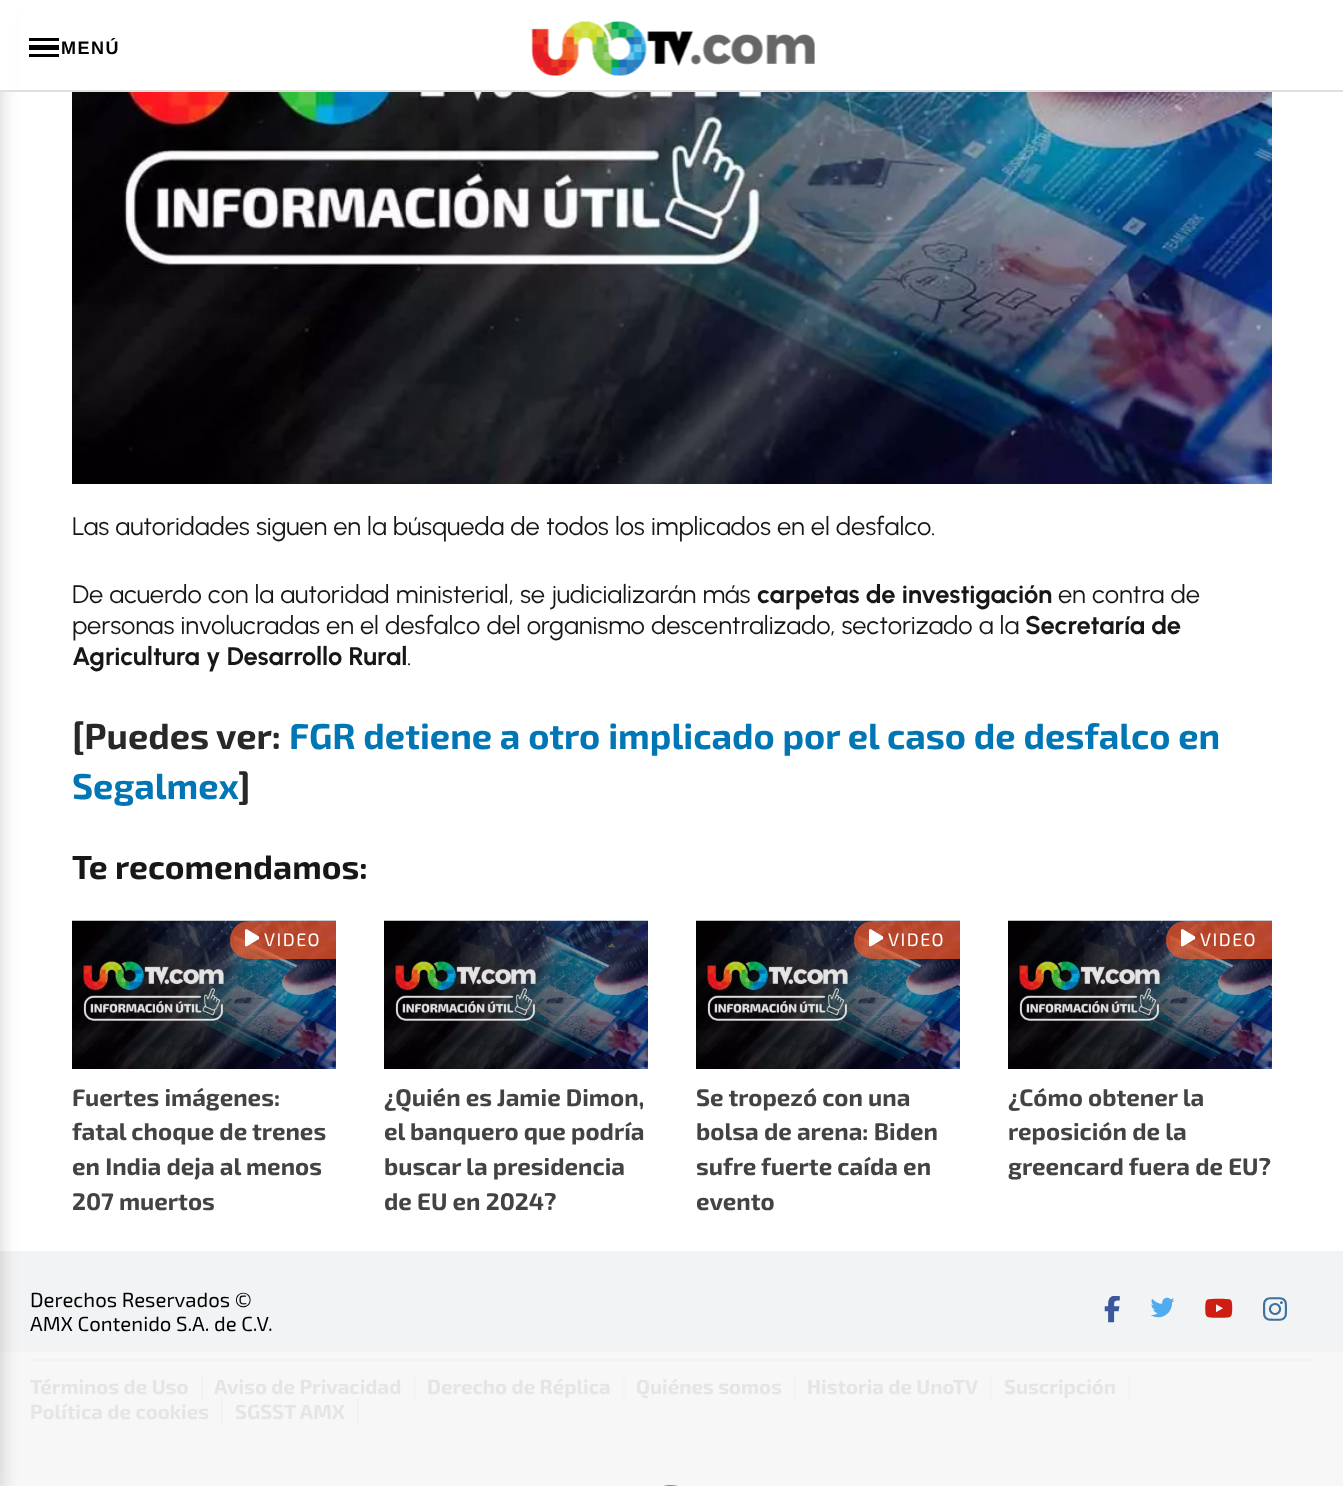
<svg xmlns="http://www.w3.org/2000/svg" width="1343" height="1486">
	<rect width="100%" height="100%" fill="#FFFFFF" />
	<rect x="0" y="1251" width="1343" height="101" fill="#F2F3F4" />
	<rect x="0" y="1352" width="1343" height="134" fill="#F7F7F7" />
	<rect x="-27" y="9" width="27" height="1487" fill="#6B5252" fill-opacity="0.3" filter="blur(9px)" />
	<rect x="0" y="0" width="15" height="90" fill="#FFFFFF" />
	<rect x="0" y="90" width="1343" height="2" fill="#E0DEDE" />
	<rect x="29" y="38" width="30" height="3" fill="#000000" />
	<rect x="29" y="45" width="30" height="5" fill="#000000" />
	<rect x="29" y="54" width="30" height="3" fill="#000000" />
	<text x="61" y="54" font-family="Liberation Sans" font-size="18" font-weight="700" letter-spacing="1.5" fill="#000000">MENÚ</text>
	<image x="531" y="21" width="284" height="55" href="assets/img1.png" />
	<image x="72" y="92" width="1200" height="392" href="assets/img2.png" />
	<g font-family="Urbanist" font-size="25.5" fill="#171717">
		<text x="72" y="535">Las autoridades siguen en la búsqueda de todos los implicados en el desfalco.</text>
		<text x="72" y="603">De acuerdo con la autoridad ministerial, se judicializarán más</text>
	</g>
	<text x="757" y="603" font-family="Urbanist" font-size="25.5" font-weight="700" fill="#171717">carpetas de investigación</text>
	<g font-family="Urbanist" font-size="25.5" fill="#171717">
		<text x="1058" y="603">en contra de</text>
		<text x="72" y="634">personas involucradas en el desfalco del organismo descentralizado, sectorizado a la</text>
	</g>
	<g font-family="Urbanist" font-size="25.5" font-weight="700" fill="#171717">
		<text x="1025" y="634">Secretaría de</text>
		<text x="72" y="665">Agricultura y Desarrollo Rural</text>
	</g>
	<text x="407" y="665" font-family="Urbanist" font-size="25.5" fill="#171717">.</text>
	<text x="72" y="749" font-family="'Exo 2'" font-size="36" font-weight="700" fill="#282829">[Puedes ver:</text>
	<g font-family="'Exo 2'" font-size="36" font-weight="700" fill="#0076B5">
		<text x="289" y="749">FGR detiene a otro implicado por el caso de desfalco en</text>
		<text x="72" y="799">Segalmex</text>
	</g>
	<text x="238" y="799" font-family="'Exo 2'" font-size="36" font-weight="700" fill="#282829">]</text>
	<text x="72" y="879" font-family="'Exo 2'" font-size="33.5" font-weight="700" fill="#171717">Te recomendamos:</text>
	<image x="72" y="920" width="264" height="149" href="assets/img3.png" />
	<path d="M249 921H336V959H249C238.5 959 230 950.5 230 940C230 929.5 238.5 921 249 921Z" fill="#FF5722" fill-opacity="0.69" />
	<image x="245" y="929" width="15" height="18" href="assets/img4.png" />
	<text x="264" y="946" font-family="'Exo 2'" font-size="18" letter-spacing="1.5" fill="#FFFFFF">VIDEO</text>
	<g font-family="'Exo 2'" font-size="24" font-weight="700" fill="#434345">
		<text x="72" y="1106">Fuertes imágenes:</text>
		<text x="72" y="1140">fatal choque de trenes</text>
		<text x="72" y="1175">en India deja al menos</text>
		<text x="72" y="1210">207 muertos</text>
	</g>
	<image x="384" y="920" width="264" height="149" href="assets/img3.png" />
	<g font-family="'Exo 2'" font-size="24" font-weight="700" fill="#434345">
		<text x="384" y="1106">¿Quién es Jamie Dimon,</text>
		<text x="384" y="1140">el banquero que podría</text>
		<text x="384" y="1175">buscar la presidencia</text>
		<text x="384" y="1210">de EU en 2024?</text>
	</g>
	<image x="696" y="920" width="264" height="149" href="assets/img3.png" />
	<path d="M873 921H960V959H873C862.5 959 854 950.5 854 940C854 929.5 862.5 921 873 921Z" fill="#FF5722" fill-opacity="0.69" />
	<image x="869" y="929" width="15" height="18" href="assets/img5.png" />
	<text x="888" y="946" font-family="'Exo 2'" font-size="18" letter-spacing="1.5" fill="#FFFFFF">VIDEO</text>
	<g font-family="'Exo 2'" font-size="24" font-weight="700" fill="#434345">
		<text x="696" y="1106">Se tropezó con una</text>
		<text x="696" y="1140">bolsa de arena: Biden</text>
		<text x="696" y="1175">sufre fuerte caída en</text>
		<text x="696" y="1210">evento</text>
	</g>
	<image x="1008" y="920" width="264" height="149" href="assets/img3.png" />
	<path d="M1185 921H1272V959H1185C1174.5 959 1166 950.5 1166 940C1166 929.5 1174.5 921 1185 921Z" fill="#FF5722" fill-opacity="0.69" />
	<image x="1181" y="929" width="15" height="18" href="assets/img5.png" />
	<text x="1200" y="946" font-family="'Exo 2'" font-size="18" letter-spacing="1.5" fill="#FFFFFF">VIDEO</text>
	<g font-family="'Exo 2'" font-size="24" font-weight="700" fill="#434345">
		<text x="1008" y="1106">¿Cómo obtener la</text>
		<text x="1008" y="1140">reposición de la</text>
		<text x="1008" y="1175">greencard fuera de EU?</text>
	</g>
	<g font-family="'Exo 2'" font-size="20.4" fill="#000000">
		<text x="30" y="1307">Derechos Reservados ©</text>
		<text x="30" y="1331">AMX Contenido S.A. de C.V.</text>
	</g>
	<image x="1104" y="1296" width="16" height="27" href="assets/img6.png" />
	<image x="1151" y="1297" width="24" height="21" href="assets/img7.png" />
	<image x="1205" y="1298" width="28" height="20" href="assets/img8.png" />
	<image x="1263" y="1297" width="24" height="24" href="assets/img9.png" />
	<rect x="30" y="1359" width="1284" height="2" fill="#F3F3F3" />
	<text x="30" y="1394" font-family="'Exo 2'" font-size="20.4" font-weight="700" fill="#E5E5E5">Términos de Uso</text>
	<rect x="201" y="1374" width="2" height="26" fill="#F3F3F3" />
	<text x="214" y="1394" font-family="'Exo 2'" font-size="20.4" font-weight="700" fill="#E5E5E5">Aviso de Privacidad</text>
	<rect x="414" y="1374" width="2" height="26" fill="#F3F3F3" />
	<text x="427" y="1394" font-family="'Exo 2'" font-size="20.4" font-weight="700" fill="#E5E5E5">Derecho de Réplica</text>
	<rect x="623" y="1374" width="2" height="26" fill="#F3F3F3" />
	<text x="636" y="1394" font-family="'Exo 2'" font-size="20.4" font-weight="700" fill="#E5E5E5">Quiénes somos</text>
	<rect x="794" y="1374" width="2" height="26" fill="#F3F3F3" />
	<text x="807" y="1394" font-family="'Exo 2'" font-size="20.4" font-weight="700" fill="#E5E5E5">Historia de UnoTV</text>
	<rect x="990" y="1374" width="2" height="26" fill="#F3F3F3" />
	<text x="1004" y="1394" font-family="'Exo 2'" font-size="20.4" font-weight="700" fill="#E5E5E5">Suscripción</text>
	<rect x="1128" y="1374" width="2" height="26" fill="#F3F3F3" />
	<text x="30" y="1419" font-family="'Exo 2'" font-size="20.4" font-weight="700" fill="#E5E5E5">Política de cookies</text>
	<rect x="221" y="1398" width="2" height="26" fill="#F3F3F3" />
	<text x="235" y="1419" font-family="'Exo 2'" font-size="20.4" font-weight="700" fill="#E5E5E5">SGSST AMX</text>
	<rect x="357" y="1398" width="2" height="26" fill="#F3F3F3" />
	<rect x="655" y="1486" width="31" height="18" rx="15.5" fill="none" stroke="#888888" stroke-width="2" />
</svg>
